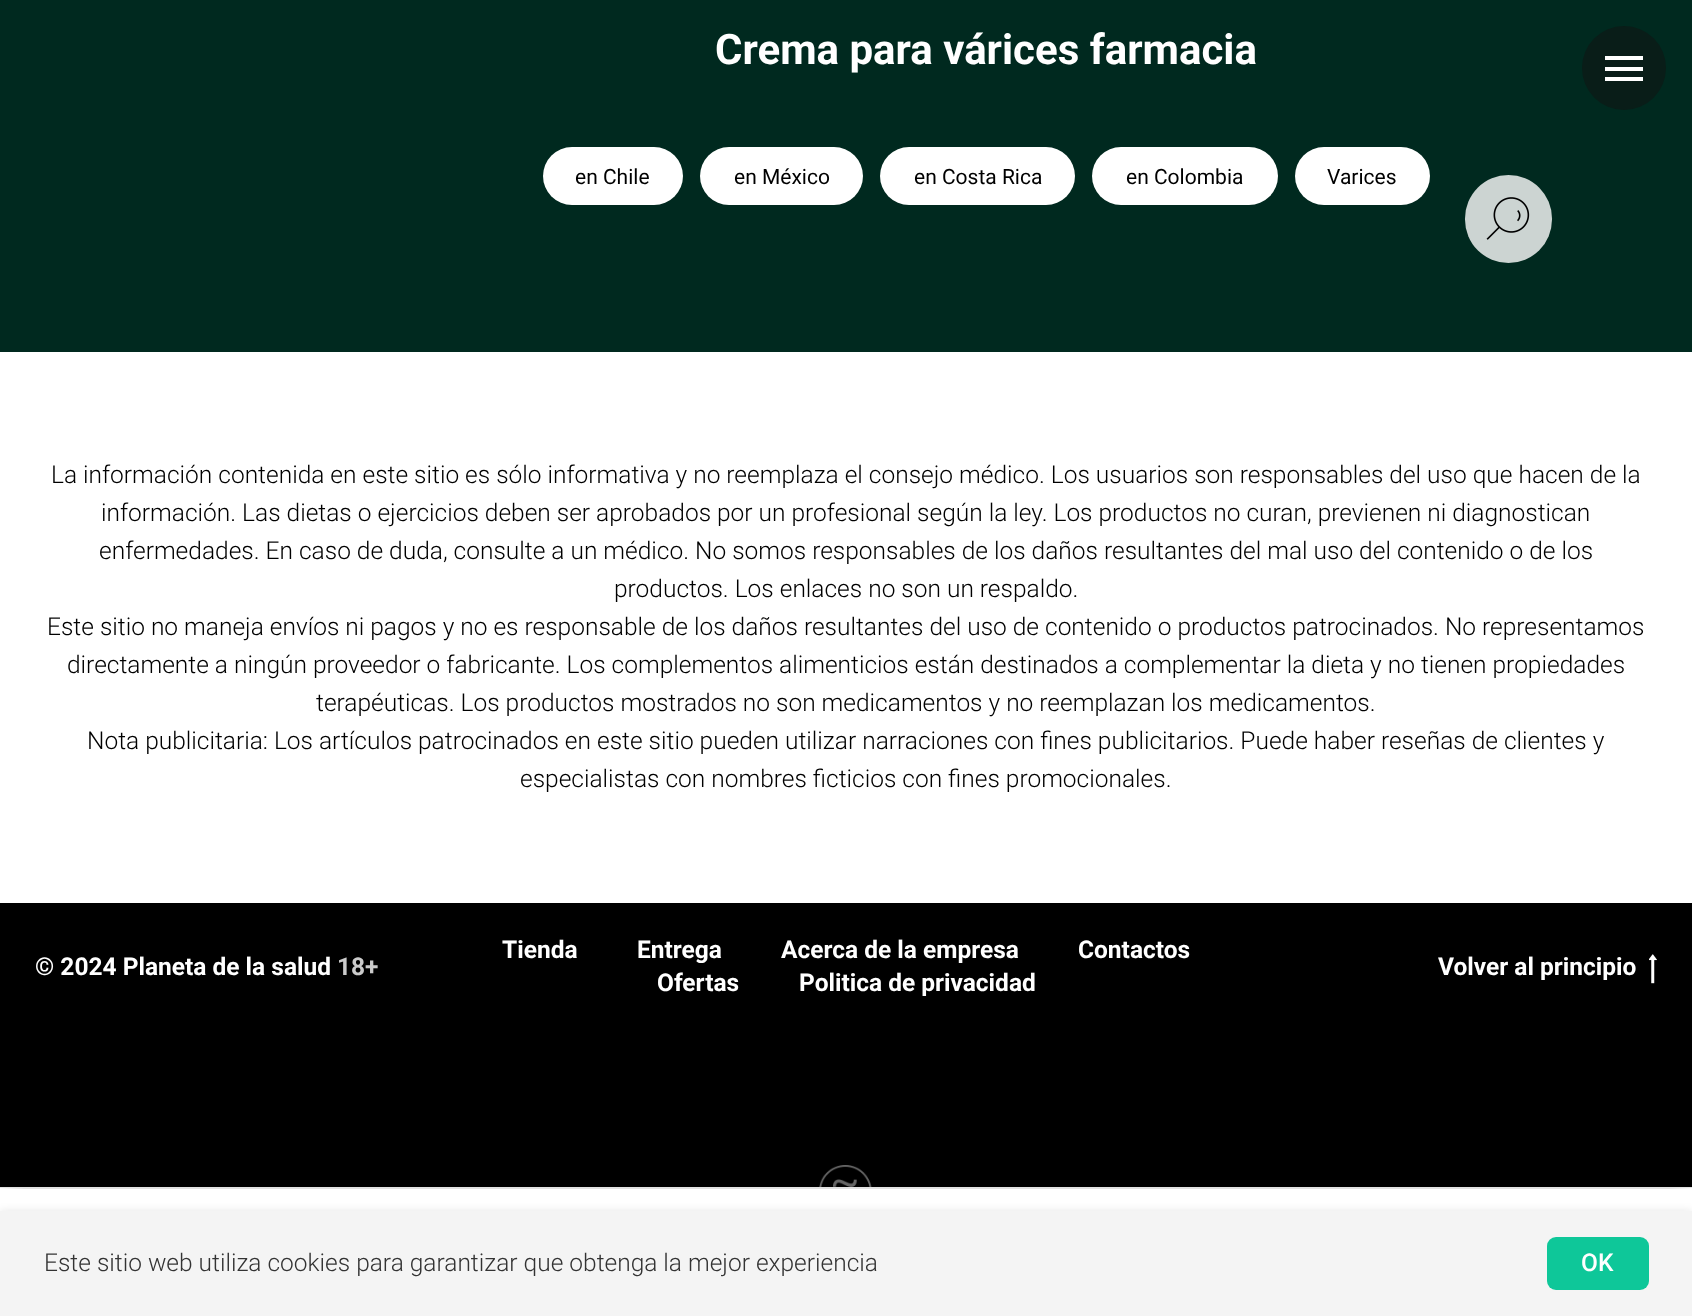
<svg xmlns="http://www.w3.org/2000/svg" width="1692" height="1316">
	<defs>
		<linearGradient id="g1" gradientUnits="userSpaceOnUse" x1="25" y1="1252" x2="-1.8" y2="1252"><stop offset="0" stop-color="#FFFFFF" stop-opacity="0" /><stop offset="1" stop-color="#FFFFFF" /></linearGradient>
		<linearGradient id="g2" gradientUnits="userSpaceOnUse" x1="1668" y1="1252" x2="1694" y2="1252"><stop offset="0" stop-color="#FFFFFF" stop-opacity="0" /><stop offset="1" stop-color="#FFFFFF" /></linearGradient>
	</defs>
	<rect width="100%" height="100%" fill="#FFFFFF" />
	<rect x="0" y="0" width="1692" height="352" fill="#00291F" />
	<circle cx="1624" cy="68" r="42" fill="#091D18" />
	<rect x="1605" y="56" width="38" height="4" fill="#FFFFFF" />
	<rect x="1605" y="67" width="38" height="4" fill="#FFFFFF" />
	<rect x="1605" y="77" width="38" height="4" fill="#FFFFFF" />
	<rect x="1465" y="175" width="87" height="88" rx="43.5" fill="#FFFFFF" fill-opacity="0.8" />
	<image x="1486" y="197" width="44" height="43" href="assets/img1.png" />
	<rect x="0" y="1187" width="1692" height="2" fill="#E2E2E2" />
	<rect x="0" y="1188" width="23" height="1" fill="url(#g1)" />
	<rect x="1670" y="1188" width="22" height="1" fill="url(#g2)" />
	<text x="715" y="64" font-family="Roboto" font-size="42" font-weight="700" fill="#FFFFFF">Crema para várices farmacia</text>
	<rect x="543" y="147" width="140" height="58" rx="29" fill="#FFFFFF" />
	<text x="575" y="184" font-family="Roboto" font-size="21" fill="#000000">en Chile</text>
	<rect x="700" y="147" width="163" height="58" rx="29" fill="#FFFFFF" />
	<text x="734" y="184" font-family="Roboto" font-size="21" fill="#000000">en México</text>
	<rect x="880" y="147" width="195" height="58" rx="29" fill="#FFFFFF" />
	<text x="914" y="184" font-family="Roboto" font-size="21" fill="#000000">en Costa Rica</text>
	<rect x="1092" y="147" width="186" height="58" rx="29" fill="#FFFFFF" />
	<text x="1126" y="184" font-family="Roboto" font-size="21" fill="#000000">en Colombia</text>
	<rect x="1295" y="147" width="135" height="58" rx="29" fill="#FFFFFF" />
	<text x="1327" y="184" font-family="Roboto" font-size="21" fill="#000000">Varices</text>
	<g font-family="Roboto" font-size="24.5" font-weight="300" fill="#000000">
		<text x="51" y="483">La información contenida en este sitio es sólo informativa y no reemplaza el consejo médico. Los usuarios son responsables del uso que hacen de la</text>
		<text x="101" y="521">información. Las dietas o ejercicios deben ser aprobados por un profesional según la ley. Los productos no curan, previenen ni diagnostican</text>
		<text x="99" y="559">enfermedades. En caso de duda, consulte a un médico. No somos responsables de los daños resultantes del mal uso del contenido o de los</text>
		<text x="614" y="597">productos. Los enlaces no son un respaldo.</text>
		<text x="47" y="635">Este sitio no maneja envíos ni pagos y no es responsable de los daños resultantes del uso de contenido o productos patrocinados. No representamos</text>
		<text x="67" y="673">directamente a ningún proveedor o fabricante. Los complementos alimenticios están destinados a complementar la dieta y no tienen propiedades</text>
		<text x="316" y="711">terapéuticas. Los productos mostrados no son medicamentos y no reemplazan los medicamentos.</text>
		<text x="87" y="749">Nota publicitaria: Los artículos patrocinados en este sitio pueden utilizar narraciones con fines publicitarios. Puede haber reseñas de clientes y</text>
		<text x="520" y="787">especialistas con nombres ficticios con fines promocionales.</text>
	</g>
	<rect x="0" y="903" width="1692" height="284" fill="#000000" />
	<text x="35" y="975" font-family="Roboto" font-size="24.5" font-weight="700" fill="#FFFFFF">© 2024 Planeta de la salud</text>
	<text x="337" y="975" font-family="Roboto" font-size="24.5" font-weight="700" fill="#CBCBCB">18+</text>
	<g font-family="Roboto" font-size="24.5" font-weight="700" fill="#FFFFFF">
		<text x="502" y="958">Tienda</text>
		<text x="637" y="958">Entrega</text>
		<text x="781" y="958">Acerca de la empresa</text>
		<text x="1078" y="958">Contactos</text>
		<text x="657" y="991">Ofertas</text>
		<text x="799" y="991">Politica de privacidad</text>
		<text x="1438" y="975">Volver al principio</text>
	</g>
	<image x="1649" y="954" width="8" height="30" href="assets/img2.png" />
	<rect x="0" y="1211" width="1692" height="105" fill="#000000" fill-opacity="0.1" filter="blur(4.5px)" />
	<rect x="0" y="1211" width="1692" height="105" fill="#F4F4F4" />
	<text x="44" y="1271" font-family="Roboto" font-size="24.5" font-weight="300" fill="#333333">Este sitio web utiliza cookies para garantizar que obtenga la mejor experiencia</text>
	<rect x="1547" y="1237" width="102" height="53" rx="9" fill="#0EC799" />
	<text x="1581" y="1271" font-family="Roboto" font-size="24.5" font-weight="500" fill="#FFFFFF">OK</text>
	<image x="819" y="1165" width="53" height="22" href="assets/img3.png" />
</svg>
